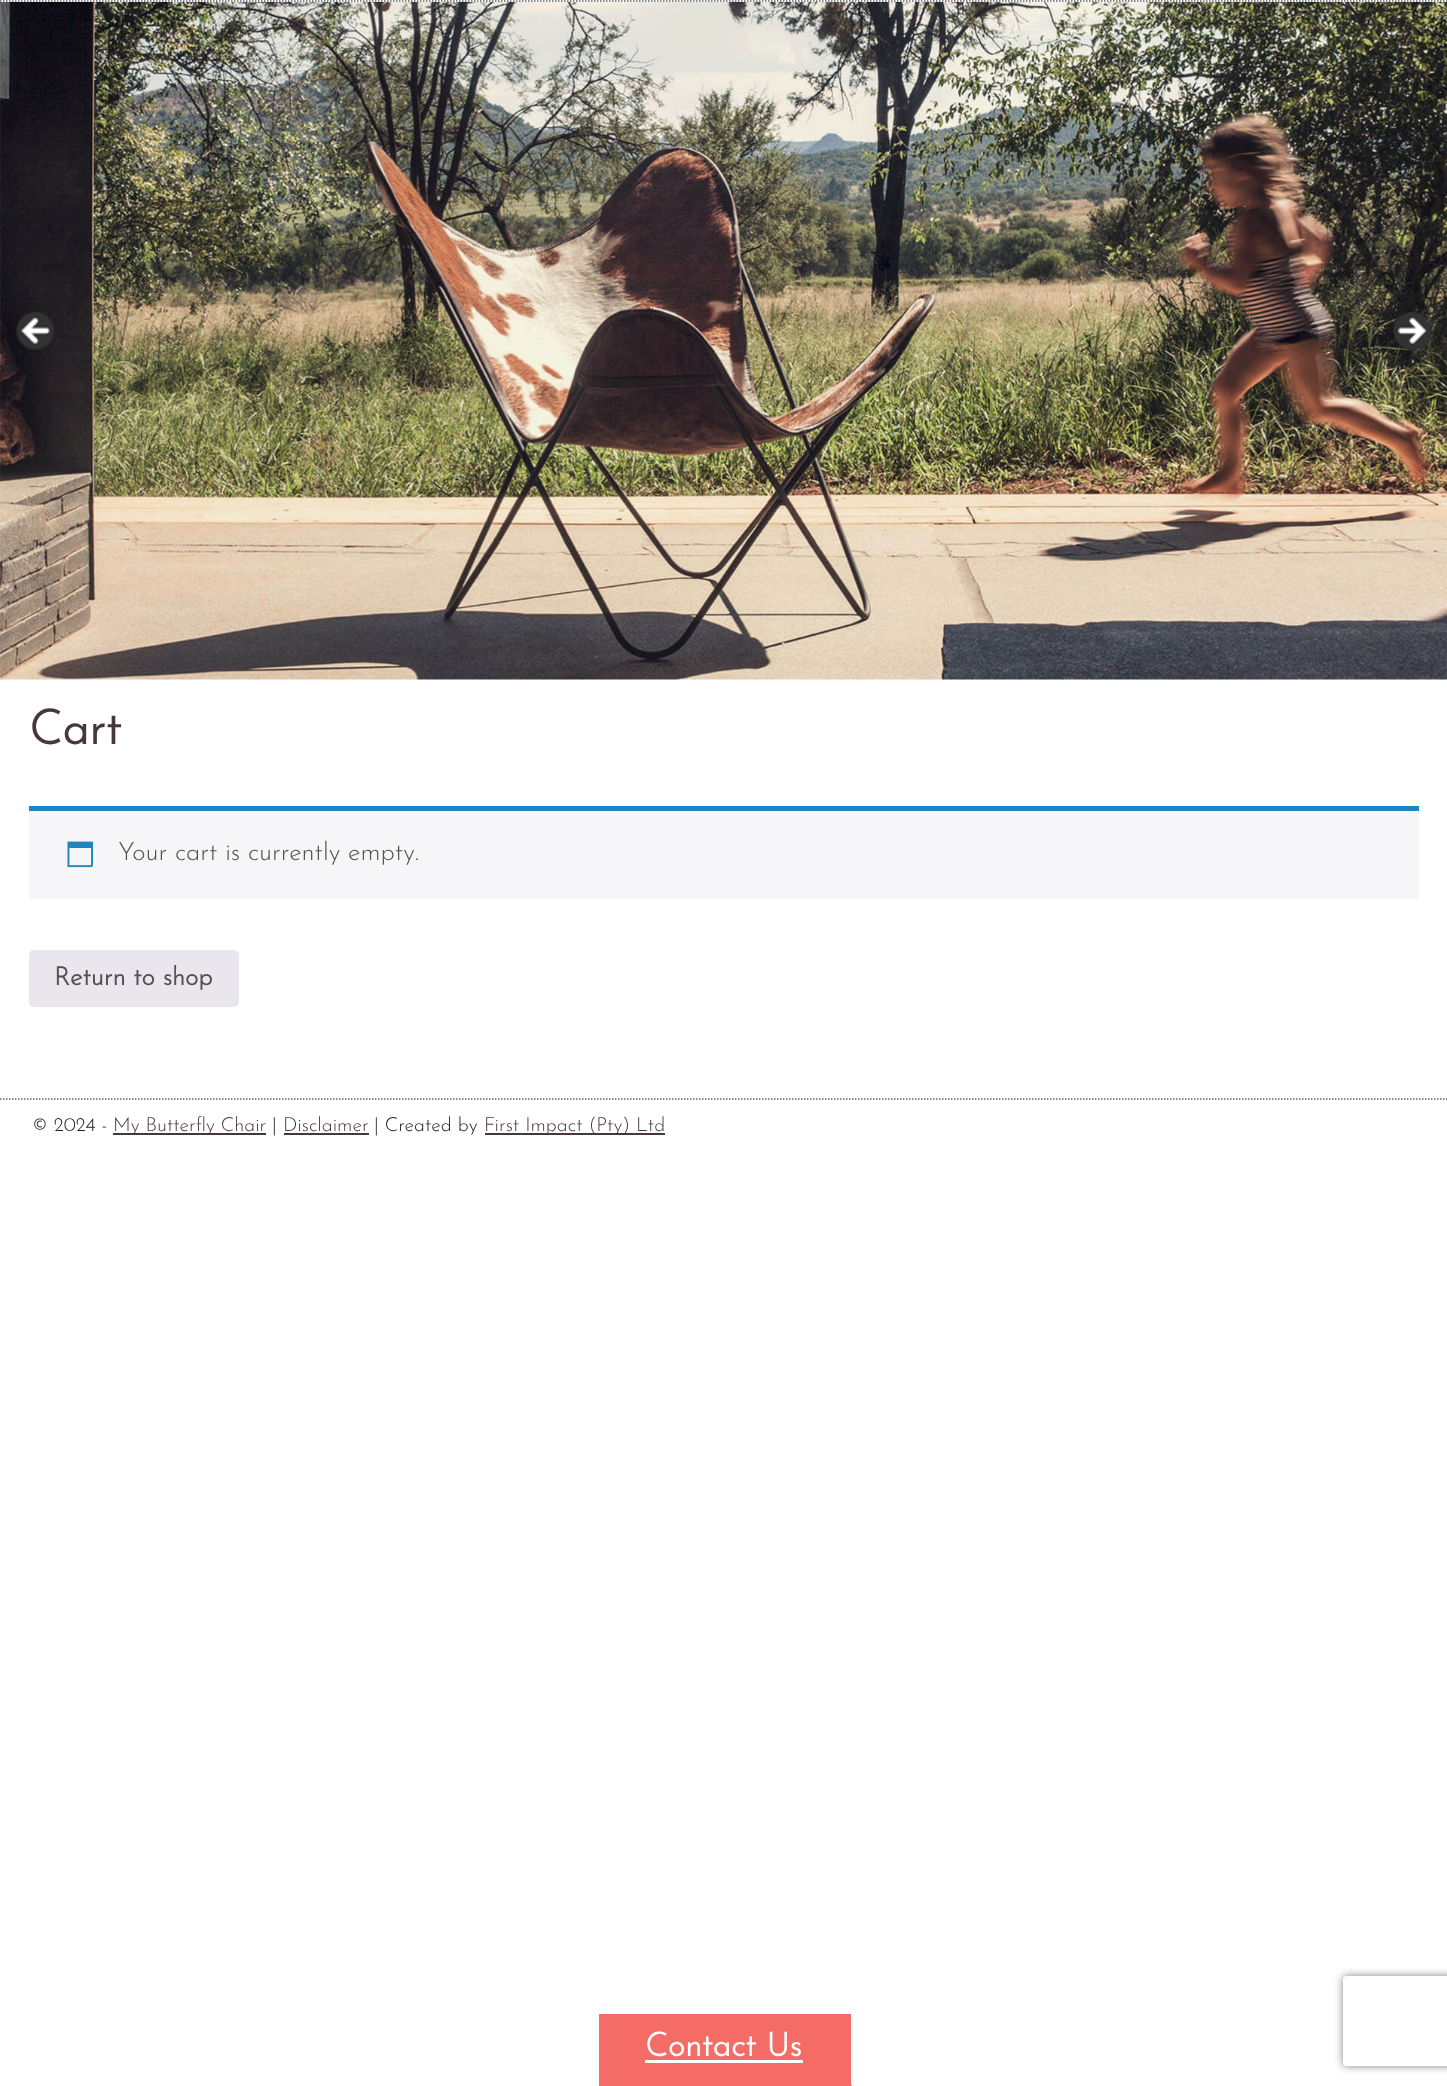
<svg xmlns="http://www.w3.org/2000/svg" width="1447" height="2086">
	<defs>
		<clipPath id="clip1"><path d="M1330 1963H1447V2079H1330ZM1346 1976H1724C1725.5 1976 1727 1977.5 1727 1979V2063C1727 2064.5 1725.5 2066 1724 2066H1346C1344.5 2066 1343 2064.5 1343 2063V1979C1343 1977.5 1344.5 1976 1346 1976Z" clip-rule="evenodd" /></clipPath>
	</defs>
	<rect width="100%" height="100%" fill="#FFFFFF" />
	<path d="M0 1H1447.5" fill="none" stroke="#606060" stroke-width="1.5" stroke-dasharray="1.5 1.5" />
	<image x="0" y="2" width="1447" height="678" href="assets/img1.png" />
	<image x="16" y="312" width="38" height="38" href="assets/img2.png" />
	<image x="1393" y="312" width="38" height="38" href="assets/img3.png" />
	<text x="29" y="744" font-family="Josefin Sans" font-size="48" font-weight="700" fill="#483737">Cart</text>
	<rect x="29" y="811" width="1390" height="88" fill="#F6F5F8" />
	<rect x="29" y="806" width="1390" height="5" fill="#1E85BE" />
	<image x="67" y="841" width="26" height="27" href="assets/img4.png" />
	<text x="118" y="860" font-family="Josefin Sans" font-size="25.5" font-weight="100" fill="#515151">Your cart is currently empty.</text>
	<rect x="29" y="950" width="210" height="57" rx="5" fill="#E9E6ED" />
	<text x="54" y="985" font-family="Josefin Sans" font-size="25.5" font-weight="700" fill="#515151">Return to shop</text>
	<rect x="599" y="2014" width="252" height="71" fill="#F46C65" />
	<rect x="597" y="2085" width="255" height="1" fill="#F46C65" />
	<rect x="597" y="2085" width="2" height="1" fill="#FFFFFF" />
	<text x="645" y="2056" font-family="Josefin Sans" font-size="33" font-weight="700" fill="#FFFFFF">Contact Us</text>
	<rect x="645" y="2060" width="158" height="3" fill="#FFFFFF" />
	<path d="M0 1099H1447.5" fill="none" stroke="#606060" stroke-width="1.5" stroke-dasharray="1.5 1.5" />
	<text x="32" y="1131" font-family="Josefin Sans" font-size="19.5" font-weight="100" fill="#222222">© 2024 -</text>
	<rect x="113" y="1133" width="153" height="2" fill="#483737" />
	<text x="113" y="1131" font-family="Josefin Sans" font-size="19.5" font-weight="100" fill="#483737">My Butterfly Chair</text>
	<text x="272" y="1131" font-family="Josefin Sans" font-size="19.5" font-weight="100" fill="#222222">|</text>
	<text x="283" y="1131" font-family="Josefin Sans" font-size="19.5" font-weight="100" fill="#483737">Disclaimer</text>
	<rect x="284" y="1133" width="85" height="2" fill="#483737" />
	<text x="374" y="1131" font-family="Josefin Sans" font-size="19.5" font-weight="100" fill="#222222">| Created by</text>
	<rect x="485" y="1133" width="180" height="2" fill="#483737" />
	<text x="484" y="1131" font-family="Josefin Sans" font-size="19.5" font-weight="100" fill="#483737">First Impact (Pty) Ltd</text>
	<g clip-path="url(#clip1)">
		<rect x="1343" y="1976" width="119" height="90" rx="3" fill="#808080" filter="blur(4px)" />
	</g>
</svg>
